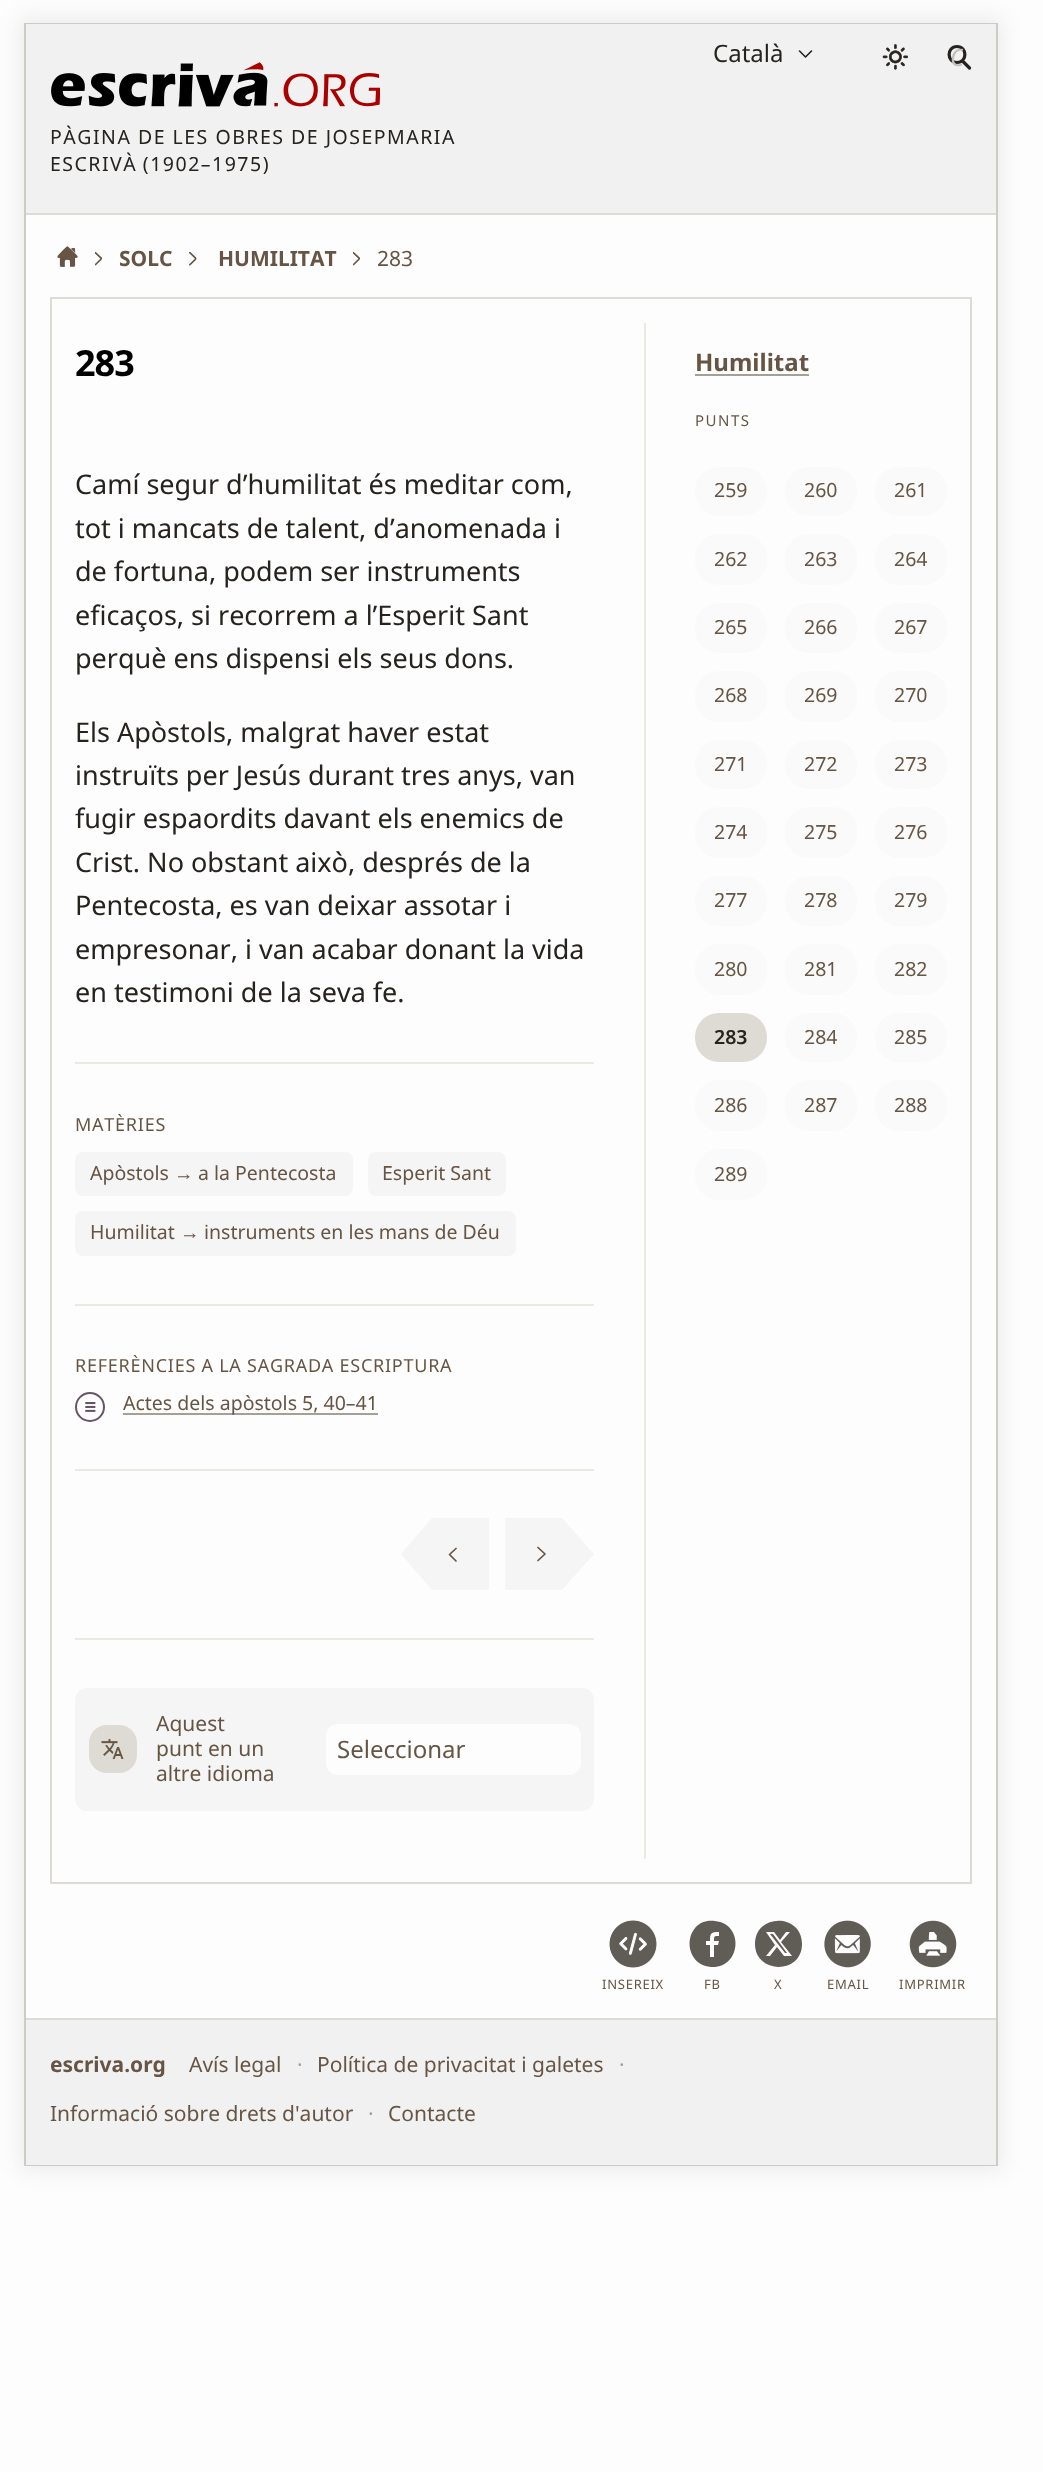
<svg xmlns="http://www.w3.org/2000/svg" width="1043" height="2472">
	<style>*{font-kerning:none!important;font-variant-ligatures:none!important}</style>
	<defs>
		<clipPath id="clip1"><path d="M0 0H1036V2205H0ZM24 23H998V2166H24Z" clip-rule="evenodd" /></clipPath>
		<clipPath id="clip2"><rect x="950" y="41" width="13" height="33" /></clipPath>
	</defs>
	<rect width="100%" height="100%" fill="#FDFDFD" />
	<g clip-path="url(#clip1)">
		<rect x="20" y="18" width="982" height="2153" fill="#000000" fill-opacity="0.07" filter="blur(11px)" />
	</g>
	<rect x="25" y="24" width="972" height="2141" fill="none" stroke="#CECBC4" stroke-width="2" />
	<rect x="26" y="24" width="970" height="189" fill="#F1F1F1" />
	<rect x="26" y="213" width="970" height="2" fill="#DEDBD4" />
	<text x="713" y="62" font-family="Noto Sans" font-size="24" fill="#26221E">Català</text>
	<path d="M811.5 51L805.5 57L799.5 51" fill="none" stroke="#26221E" stroke-width="1.6" stroke-linecap="round" stroke-linejoin="round" />
	<image x="882" y="44" width="26" height="26" href="assets/img1.png" />
	<path d="M962.5 61L969.5 68M957 46.5C967.5 46.5 967.5 62.5 957 62.5C946.5 62.5 946.5 46.5 957 46.5Z" fill="none" stroke="#26221E" stroke-width="3.2" stroke-linecap="round" />
	<g clip-path="url(#clip2)">
		<text x="950" y="66" font-family="Noto Sans" font-size="24" font-style="italic" fill="#C0BFBE">C</text>
	</g>
	<image x="51" y="62" width="329" height="45" href="assets/img2.png" />
	<g font-family="Noto Sans" font-size="19.5" letter-spacing="1.5" fill="#26221E">
		<text x="50" y="144">PÀGINA DE LES OBRES DE JOSEPMARIA</text>
		<text x="50" y="171" word-spacing="-1">ESCRIVÀ (1902–1975)</text>
	</g>
	<image x="57" y="246" width="21" height="21" href="assets/img3.png" />
	<image x="95" y="252" width="7" height="14" href="assets/img4.png" />
	<text x="119" y="266" font-family="Noto Sans" font-size="21" font-weight="700" fill="#665544">SOLC</text>
	<image x="189" y="252" width="8" height="14" href="assets/img5.png" />
	<text x="218" y="266" font-family="Noto Sans" font-size="21" font-weight="700" fill="#665544">HUMILITAT</text>
	<image x="353" y="252" width="7" height="14" href="assets/img4.png" />
	<text x="377" y="266" font-family="Noto Sans" font-size="21" fill="#665544">283</text>
	<rect x="51" y="298" width="920" height="1585" fill="none" stroke="#DEDBD4" stroke-width="2" />
	<rect x="644" y="323" width="2" height="1536" fill="#ECE9E3" />
	<text x="75" y="376" font-family="Noto Sans" font-size="36" font-weight="700" letter-spacing="-1" fill="#000000">283</text>
	<g font-family="Noto Sans" font-size="27" fill="#26221E">
		<text x="75" y="494">Camí segur d’humilitat és meditar com,</text>
		<text x="75" y="538">tot i mancats de talent, d’anomenada i</text>
		<text x="75" y="581">de fortuna, podem ser instruments</text>
		<text x="75" y="625">eficaços, si recorrem a l’Esperit Sant</text>
		<text x="75" y="668">perquè ens dispensi els seus dons.</text>
		<text x="75" y="742">Els Apòstols, malgrat haver estat</text>
		<text x="75" y="785">instruïts per Jesús durant tres anys, van</text>
		<text x="75" y="828">fugir espaordits davant els enemics de</text>
		<text x="75" y="872">Crist. No obstant això, després de la</text>
		<text x="75" y="915">Pentecosta, es van deixar assotar i</text>
		<text x="75" y="959">empresonar, i van acabar donant la vida</text>
		<text x="75" y="1002">en testimoni de la seva fe.</text>
	</g>
	<rect x="75" y="1062" width="519" height="2" fill="#ECE9E3" />
	<text x="75" y="1131" font-family="Noto Sans" font-size="18" letter-spacing="0.75" fill="#665544">MATÈRIES</text>
	<rect x="75" y="1152" width="278" height="44" rx="8" fill="#F5F5F5" />
	<text x="90" y="1180" font-family="Noto Sans" font-size="19.5" fill="#665544">Apòstols</text>
	<text x="174" y="1180" font-family="Liberation Sans" font-size="19.5" fill="#665544">→</text>
	<text x="198" y="1180" font-family="Noto Sans" font-size="19.5" fill="#665544">a la Pentecosta</text>
	<rect x="368" y="1152" width="138" height="44" rx="8" fill="#F5F5F5" />
	<text x="382" y="1180" font-family="Noto Sans" font-size="19.5" fill="#665544">Esperit Sant</text>
	<rect x="75" y="1211" width="441" height="45" rx="8" fill="#F5F5F5" />
	<text x="90" y="1239" font-family="Noto Sans" font-size="19.5" fill="#665544">Humilitat</text>
	<text x="180" y="1239" font-family="Liberation Sans" font-size="19.5" fill="#665544">→</text>
	<text x="204" y="1239" font-family="Noto Sans" font-size="19.5" fill="#665544">instruments en les mans de Déu</text>
	<rect x="75" y="1304" width="519" height="2" fill="#ECE9E3" />
	<text x="75" y="1372" font-family="Noto Sans" font-size="18" letter-spacing="0.75" fill="#665544">REFERÈNCIES A LA SAGRADA ESCRIPTURA</text>
	<circle cx="90" cy="1407" r="14" fill="none" stroke="#665566" stroke-width="2" />
	<image x="85" y="1402" width="11" height="10" href="assets/img6.png" />
	<rect x="123" y="1413" width="255" height="2" fill="#A4A098" />
	<text x="123" y="1410" font-family="Noto Sans" font-size="19.5" fill="#665544">Actes dels apòstols 5, 40–41</text>
	<rect x="75" y="1469" width="519" height="2" fill="#ECE9E3" />
	<path d="M401 1554L432 1518H489V1590H432Z" fill="#F5F5F5" />
	<path d="M456 1561L449.5 1554.5L456 1548.5" fill="none" stroke="#665544" stroke-width="1.7" stroke-linecap="round" stroke-linejoin="round" />
	<path d="M562 1518H505V1590H562L594 1554Z" fill="#F5F5F5" />
	<path d="M538 1547.5L545 1554L538 1560.5" fill="none" stroke="#665544" stroke-width="1.7" stroke-linecap="round" stroke-linejoin="round" />
	<rect x="75" y="1638" width="519" height="2" fill="#ECE9E3" />
	<rect x="75" y="1688" width="519" height="123" rx="12" fill="#F5F5F5" />
	<rect x="89" y="1725" width="48" height="48" rx="18" fill="#DEDBD4" />
	<image x="101" y="1739" width="23" height="20" href="assets/img7.png" />
	<g font-family="Noto Sans" font-size="21" fill="#665544">
		<text x="156" y="1731">Aquest</text>
		<text x="156" y="1756">punt en un</text>
		<text x="156" y="1781">altre idioma</text>
	</g>
	<rect x="326" y="1724" width="255" height="51" rx="12" fill="#FDFDFD" />
	<text x="337" y="1758" font-family="Noto Sans" font-size="24" fill="#665544">Seleccionar</text>
	<text x="695" y="371" font-family="Noto Sans" font-size="24" font-weight="700" fill="#665544">Humilitat</text>
	<rect x="695" y="374" width="114" height="2" fill="#A4A098" />
	<text x="695" y="426" font-family="Noto Sans" font-size="15" letter-spacing="1.5" fill="#665544">PUNTS</text>
	<rect x="695" y="467" width="72" height="49" rx="24" fill="#FAFAFA" />
	<text x="714" y="497" font-family="Noto Sans" font-size="19.5" fill="#665544">259</text>
	<rect x="785" y="467" width="72" height="49" rx="24" fill="#FAFAFA" />
	<text x="804" y="497" font-family="Noto Sans" font-size="19.5" fill="#665544">260</text>
	<rect x="875" y="467" width="72" height="49" rx="24" fill="#FAFAFA" />
	<text x="894" y="497" font-family="Noto Sans" font-size="19.5" fill="#665544">261</text>
	<rect x="695" y="534" width="72" height="51" rx="24" fill="#FAFAFA" />
	<text x="714" y="566" font-family="Noto Sans" font-size="19.5" fill="#665544">262</text>
	<rect x="785" y="534" width="72" height="51" rx="24" fill="#FAFAFA" />
	<text x="804" y="566" font-family="Noto Sans" font-size="19.5" fill="#665544">263</text>
	<rect x="875" y="534" width="72" height="51" rx="24" fill="#FAFAFA" />
	<text x="894" y="566" font-family="Noto Sans" font-size="19.5" fill="#665544">264</text>
	<rect x="695" y="603" width="72" height="50" rx="24" fill="#FAFAFA" />
	<text x="714" y="634" font-family="Noto Sans" font-size="19.5" fill="#665544">265</text>
	<rect x="785" y="603" width="72" height="50" rx="24" fill="#FAFAFA" />
	<text x="804" y="634" font-family="Noto Sans" font-size="19.5" fill="#665544">266</text>
	<rect x="875" y="603" width="72" height="50" rx="24" fill="#FAFAFA" />
	<text x="894" y="634" font-family="Noto Sans" font-size="19.5" fill="#665544">267</text>
	<rect x="695" y="671" width="72" height="51" rx="24" fill="#FAFAFA" />
	<text x="714" y="702" font-family="Noto Sans" font-size="19.5" fill="#665544">268</text>
	<rect x="785" y="671" width="72" height="51" rx="24" fill="#FAFAFA" />
	<text x="804" y="702" font-family="Noto Sans" font-size="19.5" fill="#665544">269</text>
	<rect x="875" y="671" width="72" height="51" rx="24" fill="#FAFAFA" />
	<text x="894" y="702" font-family="Noto Sans" font-size="19.5" fill="#665544">270</text>
	<rect x="695" y="740" width="72" height="49" rx="24" fill="#FAFAFA" />
	<text x="714" y="771" font-family="Noto Sans" font-size="19.5" fill="#665544">271</text>
	<rect x="785" y="740" width="72" height="49" rx="24" fill="#FAFAFA" />
	<text x="804" y="771" font-family="Noto Sans" font-size="19.5" fill="#665544">272</text>
	<rect x="875" y="740" width="72" height="49" rx="24" fill="#FAFAFA" />
	<text x="894" y="771" font-family="Noto Sans" font-size="19.5" fill="#665544">273</text>
	<rect x="695" y="807" width="72" height="51" rx="24" fill="#FAFAFA" />
	<text x="714" y="839" font-family="Noto Sans" font-size="19.5" fill="#665544">274</text>
	<rect x="785" y="807" width="72" height="51" rx="24" fill="#FAFAFA" />
	<text x="804" y="839" font-family="Noto Sans" font-size="19.5" fill="#665544">275</text>
	<rect x="875" y="807" width="72" height="51" rx="24" fill="#FAFAFA" />
	<text x="894" y="839" font-family="Noto Sans" font-size="19.5" fill="#665544">276</text>
	<rect x="695" y="876" width="72" height="50" rx="24" fill="#FAFAFA" />
	<text x="714" y="907" font-family="Noto Sans" font-size="19.5" fill="#665544">277</text>
	<rect x="785" y="876" width="72" height="50" rx="24" fill="#FAFAFA" />
	<text x="804" y="907" font-family="Noto Sans" font-size="19.5" fill="#665544">278</text>
	<rect x="875" y="876" width="72" height="50" rx="24" fill="#FAFAFA" />
	<text x="894" y="907" font-family="Noto Sans" font-size="19.5" fill="#665544">279</text>
	<rect x="695" y="944" width="72" height="51" rx="24" fill="#FAFAFA" />
	<text x="714" y="976" font-family="Noto Sans" font-size="19.5" fill="#665544">280</text>
	<rect x="785" y="944" width="72" height="51" rx="24" fill="#FAFAFA" />
	<text x="804" y="976" font-family="Noto Sans" font-size="19.5" fill="#665544">281</text>
	<rect x="875" y="944" width="72" height="51" rx="24" fill="#FAFAFA" />
	<text x="894" y="976" font-family="Noto Sans" font-size="19.5" fill="#665544">282</text>
	<rect x="695" y="1013" width="72" height="49" rx="24" fill="#DEDBD4" />
	<text x="714" y="1044" font-family="Noto Sans" font-size="19.5" font-weight="600" fill="#26221E">283</text>
	<rect x="785" y="1013" width="72" height="49" rx="24" fill="#FAFAFA" />
	<text x="804" y="1044" font-family="Noto Sans" font-size="19.5" fill="#665544">284</text>
	<rect x="875" y="1013" width="72" height="49" rx="24" fill="#FAFAFA" />
	<text x="894" y="1044" font-family="Noto Sans" font-size="19.5" fill="#665544">285</text>
	<rect x="695" y="1080" width="72" height="51" rx="24" fill="#FAFAFA" />
	<text x="714" y="1112" font-family="Noto Sans" font-size="19.5" fill="#665544">286</text>
	<rect x="785" y="1080" width="72" height="51" rx="24" fill="#FAFAFA" />
	<text x="804" y="1112" font-family="Noto Sans" font-size="19.5" fill="#665544">287</text>
	<rect x="875" y="1080" width="72" height="51" rx="24" fill="#FAFAFA" />
	<text x="894" y="1112" font-family="Noto Sans" font-size="19.5" fill="#665544">288</text>
	<rect x="695" y="1149" width="72" height="51" rx="24" fill="#FAFAFA" />
	<text x="714" y="1181" font-family="Noto Sans" font-size="19.5" fill="#665544">289</text>
	<image x="609" y="1920" width="48" height="48" href="assets/img8.png" />
	<text x="602" y="1989" font-family="Noto Sans" font-size="13" letter-spacing="0.75" fill="#665544">INSEREIX</text>
	<path d="M711 1967C680 1964 684 1917 715 1921C745 1924 741 1969 711 1967M714 1945H718L719 1941H714C714 1936 714 1936 719 1936V1932C711 1932 710 1933 710 1941H706V1945H710V1957H714" fill="#605C56" />
	<text x="704" y="1989" font-family="Noto Sans" font-size="13" letter-spacing="0.75" fill="#665544">FB</text>
	<path d="M802 1944C802 1975 755 1974 755 1944C755 1913 802 1913 802 1944ZM780 1940L774 1932H766L775 1945L766 1956H770L777 1947L784 1956H792L781 1942L790 1932H786ZM770 1934H773L787 1953H785Z" fill="#605C56" />
	<text x="774" y="1989" font-family="Noto Sans" font-size="13" letter-spacing="0.75" fill="#665544">X</text>
	<image x="824" y="1920" width="47" height="48" href="assets/img9.png" />
	<text x="827" y="1989" font-family="Noto Sans" font-size="13" letter-spacing="0.75" fill="#665544">EMAIL</text>
	<image x="909" y="1920" width="48" height="48" href="assets/img10.png" />
	<text x="899" y="1989" font-family="Noto Sans" font-size="13" letter-spacing="0.75" fill="#665544">IMPRIMIR</text>
	<rect x="26" y="2020" width="970" height="145" fill="#F1F1F1" />
	<rect x="26" y="2018" width="970" height="2" fill="#DEDBD4" />
	<text x="189" y="2072" font-family="Noto Sans" font-size="21" fill="#665544">Avís legal</text>
	<text x="297" y="2072" font-family="Noto Sans" font-size="21" fill="#A4A098">·</text>
	<text x="317" y="2072" font-family="Noto Sans" font-size="21" fill="#665544">Política de privacitat i galetes</text>
	<text x="619" y="2072" font-family="Noto Sans" font-size="21" fill="#A4A098">·</text>
	<text x="50" y="2121" font-family="Noto Sans" font-size="21" fill="#665544">Informació sobre drets d'autor</text>
	<text x="368" y="2121" font-family="Noto Sans" font-size="21" fill="#A4A098">·</text>
	<text x="388" y="2121" font-family="Noto Sans" font-size="21" fill="#665544">Contacte</text>
	<text x="50" y="2072" font-family="Noto Sans" font-size="21" font-weight="700" fill="#665544">escriva.org</text>
</svg>
